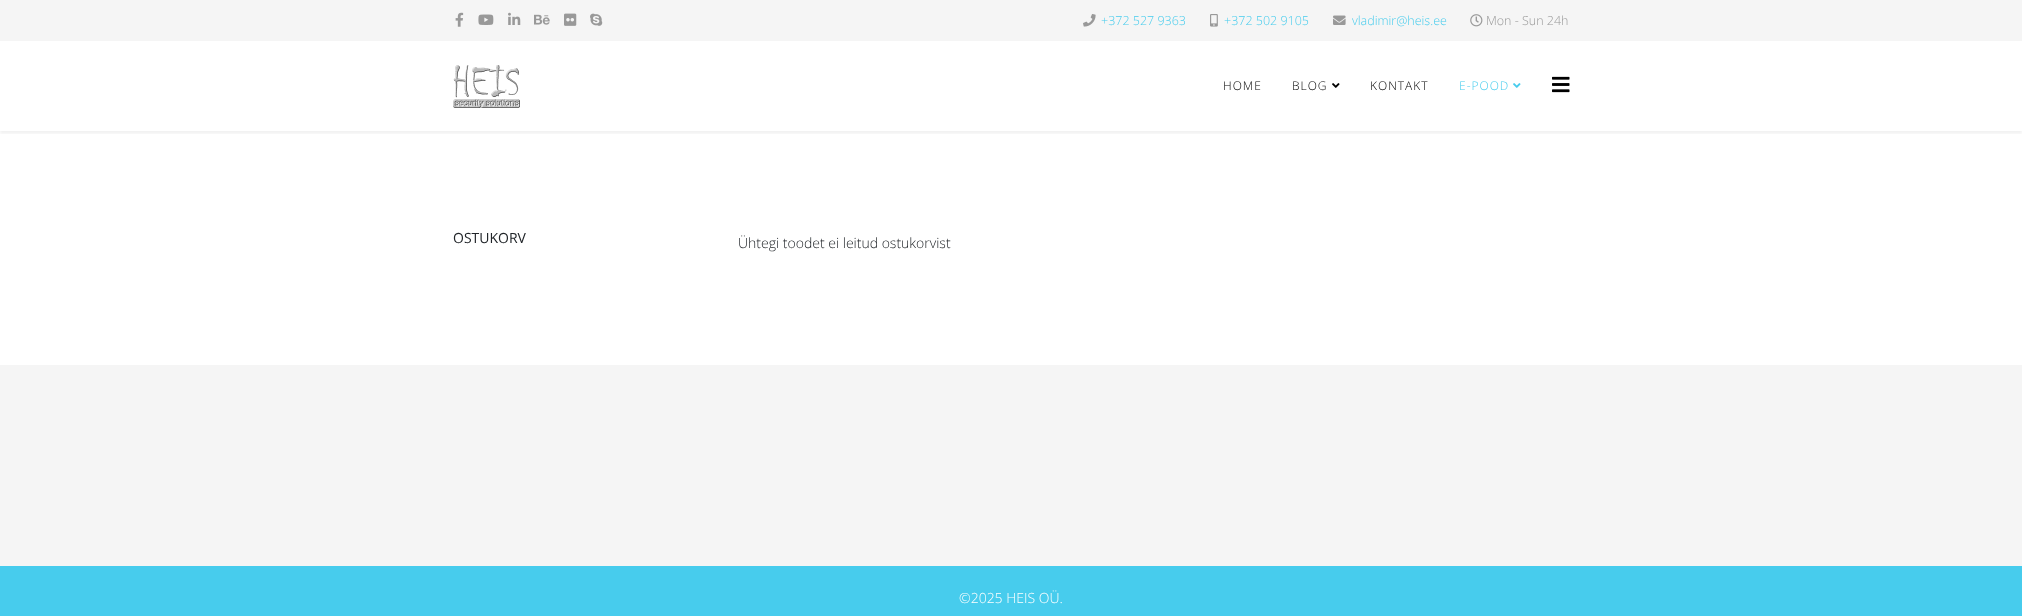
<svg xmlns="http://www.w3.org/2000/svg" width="2022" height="616">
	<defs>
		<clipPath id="clip1"><rect x="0" y="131" width="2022" height="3" /></clipPath>
	</defs>
	<rect width="100%" height="100%" fill="#FFFFFF" />
	<rect x="0" y="0" width="2022" height="41" fill="#F5F5F5" />
	<image x="455" y="12" width="9" height="15" href="assets/img1.png" />
	<image x="478" y="14" width="16" height="11" href="assets/img2.png" />
	<image x="508" y="12" width="13" height="13" href="assets/img3.png" />
	<image x="534" y="14" width="16" height="11" href="assets/img4.png" />
	<image x="564" y="13" width="13" height="13" href="assets/img5.png" />
	<image x="590" y="13" width="13" height="13" href="assets/img6.png" />
	<image x="1083" y="14" width="13" height="13" href="assets/img7.png" />
	<text x="1101" y="25" font-family="Open Sans" font-size="12.5" font-weight="300" fill="#47CCED">+372 527 9363</text>
	<image x="1210" y="14" width="8" height="13" href="assets/img8.png" />
	<text x="1224" y="25" font-family="Open Sans" font-size="12.5" font-weight="300" fill="#47CCED">+372 502 9105</text>
	<image x="1333" y="15" width="13" height="10" href="assets/img9.png" />
	<text x="1352" y="25" font-family="Open Sans" font-size="12.5" font-weight="300" fill="#47CCED">vladimir@heis.ee</text>
	<image x="1470" y="14" width="13" height="13" href="assets/img10.png" />
	<text x="1486" y="25" font-family="Open Sans" font-size="12.5" font-weight="300" fill="#999999">Mon - Sun 24h</text>
	<g clip-path="url(#clip1)">
		<rect x="0" y="44" width="2022" height="90" fill="#000000" fill-opacity="0.05" filter="blur(1.5px)" />
	</g>
	<image x="453" y="65" width="67" height="43" href="assets/img11.png" />
	<g font-family="Open Sans" font-size="12" font-weight="300" letter-spacing="1" fill="#000000">
		<text x="1223" y="90">HOME</text>
		<text x="1292" y="90">BLOG</text>
	</g>
	<image x="1332" y="83" width="8" height="5" href="assets/img12.png" />
	<text x="1370" y="90" font-family="Open Sans" font-size="12" font-weight="300" letter-spacing="1" fill="#000000">KONTAKT</text>
	<text x="1459" y="90" font-family="Open Sans" font-size="12" font-weight="300" letter-spacing="1" fill="#47CCED">E-POOD</text>
	<image x="1513" y="83" width="8" height="5" href="assets/img13.png" />
	<image x="1552" y="76" width="18" height="17" href="assets/img14.png" />
	<text x="453" y="243" font-family="Open Sans" font-size="14" fill="#212529">OSTUKORV</text>
	<text x="738" y="248" font-family="Open Sans" font-size="14" font-weight="300" fill="#212529">Ühtegi toodet ei leitud ostukorvist</text>
	<rect x="0" y="365" width="2022" height="201" fill="#F5F5F5" />
	<rect x="0" y="566" width="2022" height="50" fill="#47CCED" />
	<text x="959" y="603" font-family="Open Sans" font-size="14" font-weight="300" fill="#FFFFFF">©2025 HEIS OÜ.</text>
</svg>
